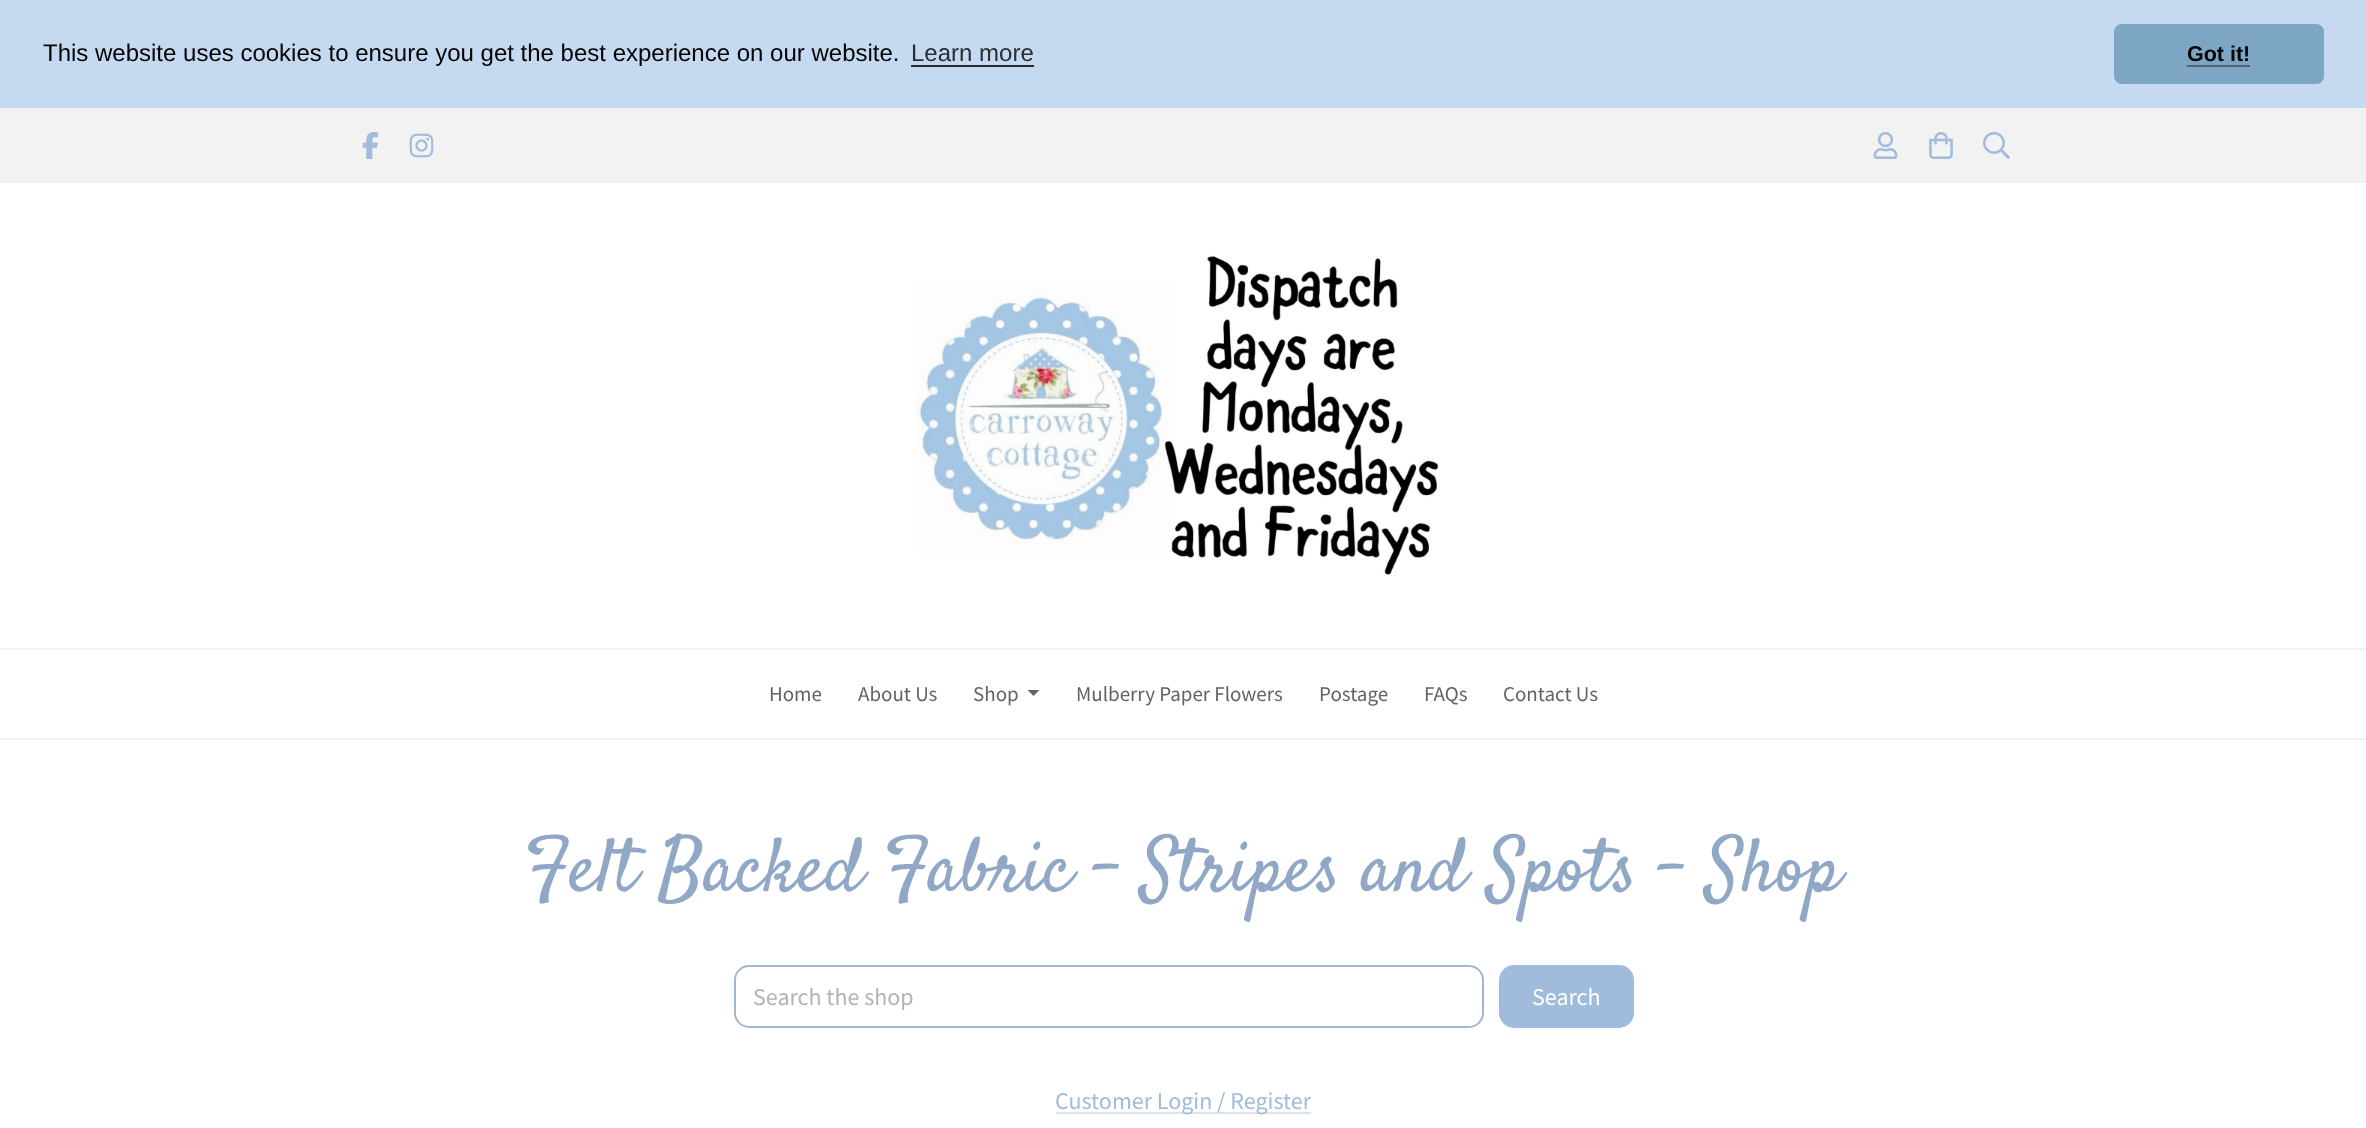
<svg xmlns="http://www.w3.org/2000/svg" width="2366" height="1128">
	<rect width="100%" height="100%" fill="#FFFFFF" />
	<rect x="0" y="0" width="2366" height="108" fill="#C5D9F0" />
	<text x="43" y="61" font-family="Liberation Sans" font-size="24" fill="#030303">This website uses cookies to ensure you get the best experience on our website.</text>
	<text x="911" y="61" font-family="Liberation Sans" font-size="24" fill="#2A2E32">Learn more</text>
	<rect x="911" y="65" width="123" height="2" fill="#2A2E32" />
	<rect x="2114" y="24" width="210" height="60" rx="8" fill="#7CA6C4" />
	<text x="2187" y="61" font-family="Liberation Sans" font-size="21.5" font-weight="700" fill="#030303">Got it!</text>
	<rect x="2187" y="65" width="63" height="2" fill="#4C6476" />
	<rect x="0" y="738" width="2366" height="2" fill="#F1F2F0" />
	<rect x="0" y="108" width="2366" height="75" fill="#F2F2F2" />
	<image x="362" y="132" width="17" height="27" href="assets/img1.png" />
	<image x="409" y="133" width="25" height="25" href="assets/img2.png" />
	<image x="1873" y="132" width="25" height="27" href="assets/img3.png" />
	<image x="1929" y="132" width="24" height="27" href="assets/img4.png" />
	<image x="1983" y="132" width="27" height="27" href="assets/img5.png" />
	<image x="915" y="255" width="524" height="321" href="assets/img6.png" />
	<rect x="0" y="648" width="2366" height="2" fill="#F1F2F0" />
	<g font-family="Source Sans Pro" font-size="21" fill="#636363">
		<text x="769" y="701">Home</text>
		<text x="858" y="701">About Us</text>
		<text x="973" y="701">Shop</text>
	</g>
	<path d="M1027.5 690H1039.5L1033.5 696Z" fill="#636363" />
	<g font-family="Source Sans Pro" font-size="21" fill="#636363">
		<text x="1076" y="701">Mulberry Paper Flowers</text>
		<text x="1319" y="701">Postage</text>
		<text x="1424" y="701">FAQs</text>
		<text x="1503" y="701">Contact Us</text>
	</g>
	<text x="525" y="890" font-family="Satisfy" font-size="75.75" fill="#90A8C5">Felt Backed Fabric - Stripes and Spots - Shop</text>
	<rect x="735" y="966" width="748" height="61" rx="14" fill="none" stroke="#A1B8D4" stroke-width="2" />
	<text x="753" y="1005" font-family="Source Sans Pro" font-size="24" fill="#B3B3B3">Search the shop</text>
	<rect x="1500.5" y="966.5" width="132" height="60" rx="13.5" fill="#A0BBDB" stroke="#A0BBDB" stroke-width="3" />
	<text x="1532" y="1005" font-family="Source Sans Pro" font-size="24" fill="#FFFFFF">Search</text>
	<rect x="1056" y="1112" width="255" height="2" fill="#D9E4F1" />
	<text x="1055" y="1109" font-family="Source Sans Pro" font-size="24" fill="#A0BBDB">Customer Login / Register</text>
</svg>
